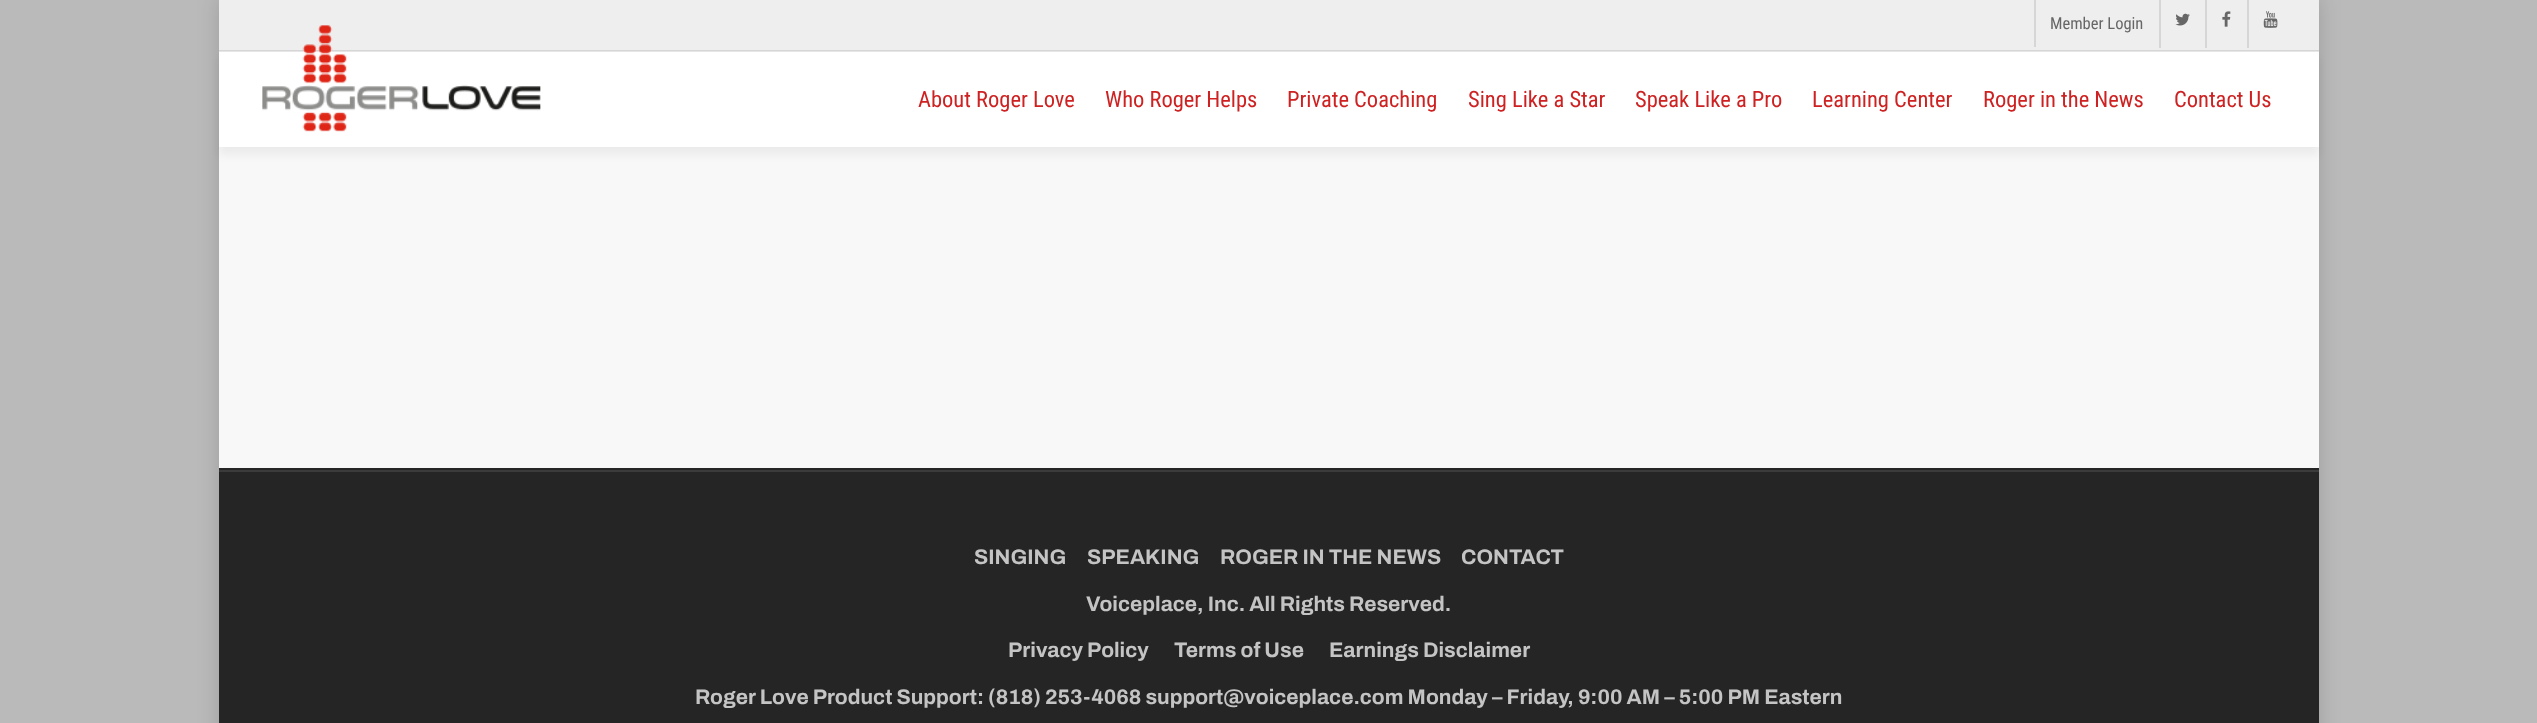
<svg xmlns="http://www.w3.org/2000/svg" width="2537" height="723">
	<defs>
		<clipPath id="clip1"><path d="M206 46H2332V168H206ZM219 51H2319V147H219Z" clip-rule="evenodd" /></clipPath>
	</defs>
	<rect width="100%" height="100%" fill="#BABABA" />
	<rect x="219" y="-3" width="2100" height="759" fill="#000000" fill-opacity="0.15" filter="blur(11px)" />
	<rect x="219" y="147" width="2100" height="321" fill="#F8F8F8" />
	<rect x="219" y="52" width="2100" height="95" fill="#FFFFFF" />
	<rect x="219" y="51" width="2100" height="1" fill="#E6E6E6" />
	<rect x="219" y="0" width="2100" height="50" fill="#EEEEEE" />
	<rect x="219" y="50" width="2100" height="1" fill="#D6D6D6" />
	<rect x="2034" y="0" width="2" height="47" fill="#D6D6D6" />
	<text x="2050" y="29" font-family="Roboto Condensed" font-size="16.5" fill="#666666">Member Login</text>
	<rect x="2159" y="0" width="2" height="48" fill="#D6D6D6" />
	<image x="2175" y="13" width="15" height="13" href="assets/img1.png" />
	<rect x="2205" y="0" width="2" height="48" fill="#D6D6D6" />
	<image x="2222" y="11" width="9" height="16" href="assets/img2.png" />
	<rect x="2247" y="0" width="2" height="48" fill="#D6D6D6" />
	<image x="2263" y="11" width="15" height="17" href="assets/img3.png" />
	<g clip-path="url(#clip1)">
		<rect x="219" y="59" width="2100" height="96" fill="#000000" fill-opacity="0.05" filter="blur(4px)" />
	</g>
	<image x="262" y="25" width="279" height="107" href="assets/img4.png" />
	<g font-family="Roboto Condensed" font-size="22.5" fill="#CE2121">
		<text x="918" y="107">About Roger Love</text>
		<text x="1105" y="107">Who Roger Helps</text>
		<text x="1287" y="107">Private Coaching</text>
		<text x="1468" y="107">Sing Like a Star</text>
		<text x="1635" y="107">Speak Like a Pro</text>
		<text x="1812" y="107">Learning Center</text>
		<text x="1983" y="107">Roger in the News</text>
		<text x="2174" y="107">Contact Us</text>
	</g>
	<rect x="219" y="468" width="2100" height="255" fill="#252525" />
	<rect x="219" y="470" width="2100" height="2" fill="#3B3B3B" />
	<g font-family="Archivo" font-size="21" font-weight="700" fill="#C4C4C4">
		<text x="974" y="564">SINGING</text>
		<text x="1087" y="564">SPEAKING</text>
		<text x="1220" y="564">ROGER IN THE NEWS</text>
		<text x="1461" y="564">CONTACT</text>
		<text x="1086" y="611">Voiceplace, Inc. All Rights Reserved.</text>
		<text x="1008" y="657">Privacy Policy</text>
		<text x="1174" y="657">Terms of Use</text>
		<text x="1329" y="657">Earnings Disclaimer</text>
		<text x="695" y="704">Roger Love Product Support: (818) 253-4068 support@voiceplace.com Monday – Friday, 9:00 AM – 5:00 PM Eastern</text>
	</g>
</svg>
